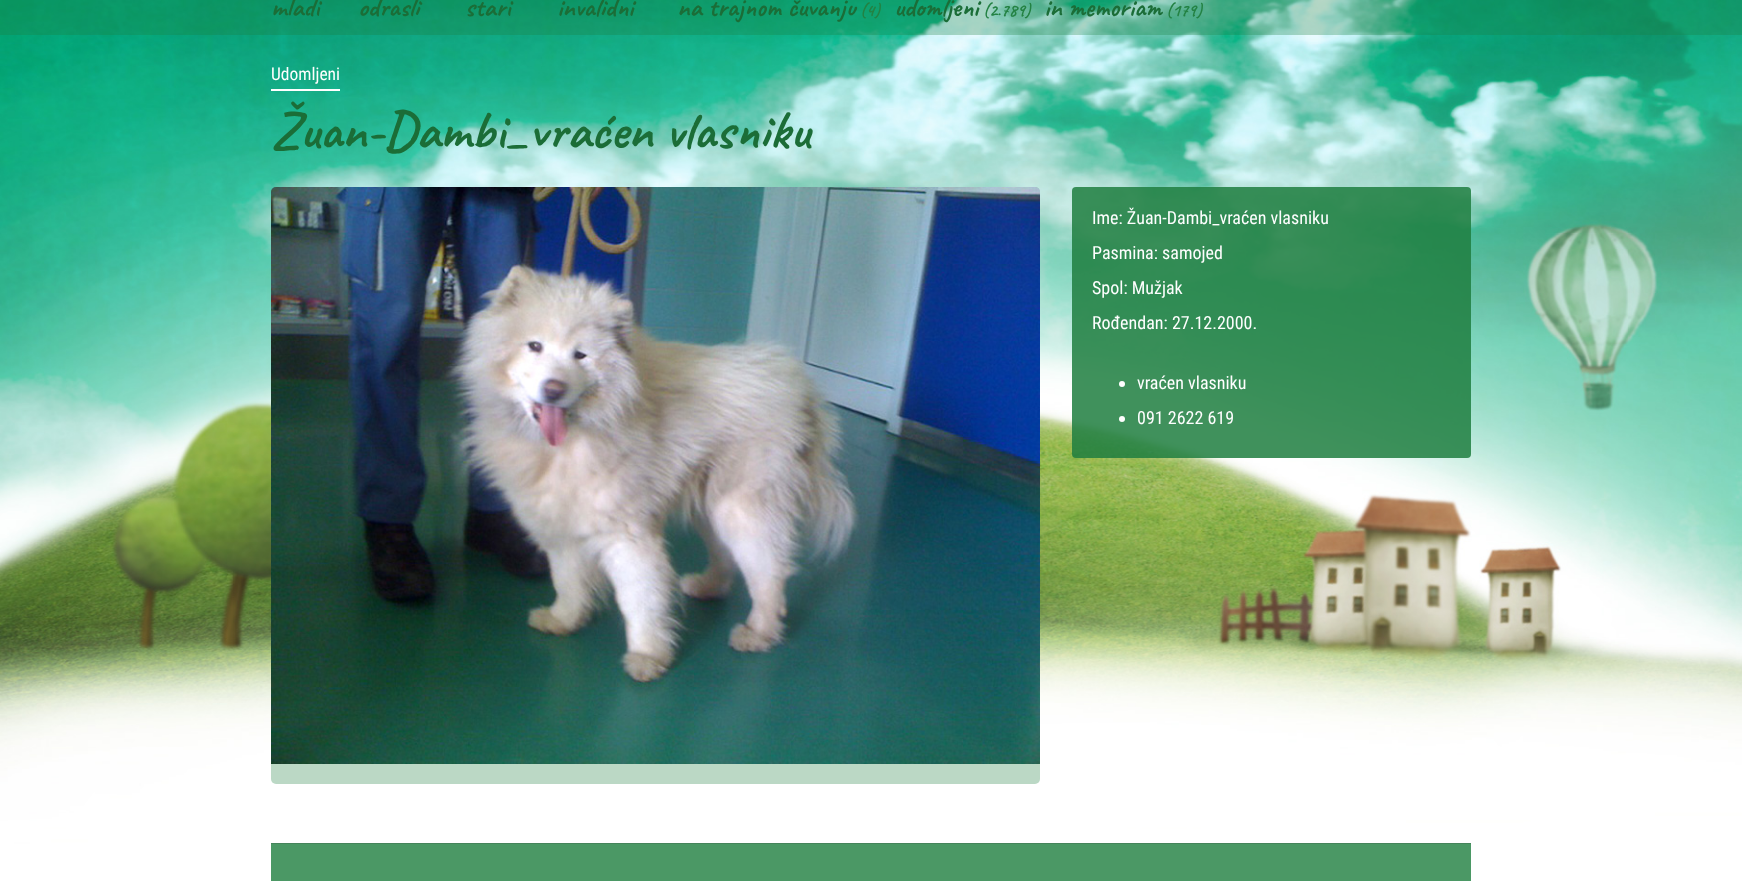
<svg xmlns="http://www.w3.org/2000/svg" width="1742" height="881">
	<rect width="100%" height="100%" fill="#FFFFFF" />
	<image x="0" y="0" width="1742" height="881" href="assets/img1.png" />
	<rect x="0" y="0" width="1742" height="35" fill="#1E7E3F" fill-opacity="0.3" />
	<g font-family="Caveat" font-size="27" font-weight="700" fill="#1B6D37">
		<text x="271" y="16">mladi</text>
		<text x="358" y="16">odrasli</text>
		<text x="465" y="16">stari</text>
		<text x="557" y="16">invalidni</text>
		<text x="677" y="16">na trajnom čuvanju</text>
	</g>
	<text x="860" y="16" font-family="Caveat" font-size="18" font-weight="700" fill="#238243">(4)</text>
	<text x="894" y="16" font-family="Caveat" font-size="27" font-weight="700" fill="#1B6D37">udomljeni</text>
	<text x="983" y="16" font-family="Caveat" font-size="18" font-weight="700" fill="#238243">(2.789)</text>
	<text x="1044" y="16" font-family="Caveat" font-size="27" font-weight="700" fill="#1B6D37">in memoriam</text>
	<text x="1166" y="16" font-family="Caveat" font-size="18" font-weight="700" fill="#238243">(179)</text>
	<rect x="271" y="89" width="69" height="2" fill="#FFFFFF" />
	<text x="271" y="80" font-family="Roboto Condensed" font-size="17.5" fill="#FEFEFE">Udomljeni</text>
	<text x="271" y="148" font-family="Caveat" font-size="54" font-weight="700" fill="#1B6D37">Žuan-Dambi_vraćen vlasniku</text>
	<rect x="271" y="187" width="769" height="597" rx="5" fill="#1E7E3F" fill-opacity="0.3" />
	<image x="271" y="187" width="769" height="577" href="assets/img2.png" />
	<rect x="1072" y="187" width="399" height="271" rx="4" fill="#1E7E3F" fill-opacity="0.85" />
	<g font-family="Roboto Condensed" font-size="18" fill="#FEFEFE">
		<text x="1092" y="224">Ime: Žuan-Dambi_vraćen vlasniku</text>
		<text x="1092" y="259">Pasmina: samojed</text>
		<text x="1092" y="294">Spol: Mužjak</text>
		<text x="1092" y="329">Rođendan: 27.12.2000.</text>
	</g>
	<circle cx="1122" cy="384" r="3" fill="#FEFEFE" />
	<text x="1137" y="389" font-family="Roboto Condensed" font-size="18" fill="#FEFEFE">vraćen vlasniku</text>
	<circle cx="1122" cy="419" r="3" fill="#FEFEFE" />
	<text x="1137" y="424" font-family="Roboto Condensed" font-size="18" fill="#FEFEFE">091 2622 619</text>
	<rect x="271" y="844" width="1200" height="37" fill="#1E7E3F" fill-opacity="0.8" />
	<rect x="271" y="843" width="1200" height="1" fill="#46845B" />
</svg>
